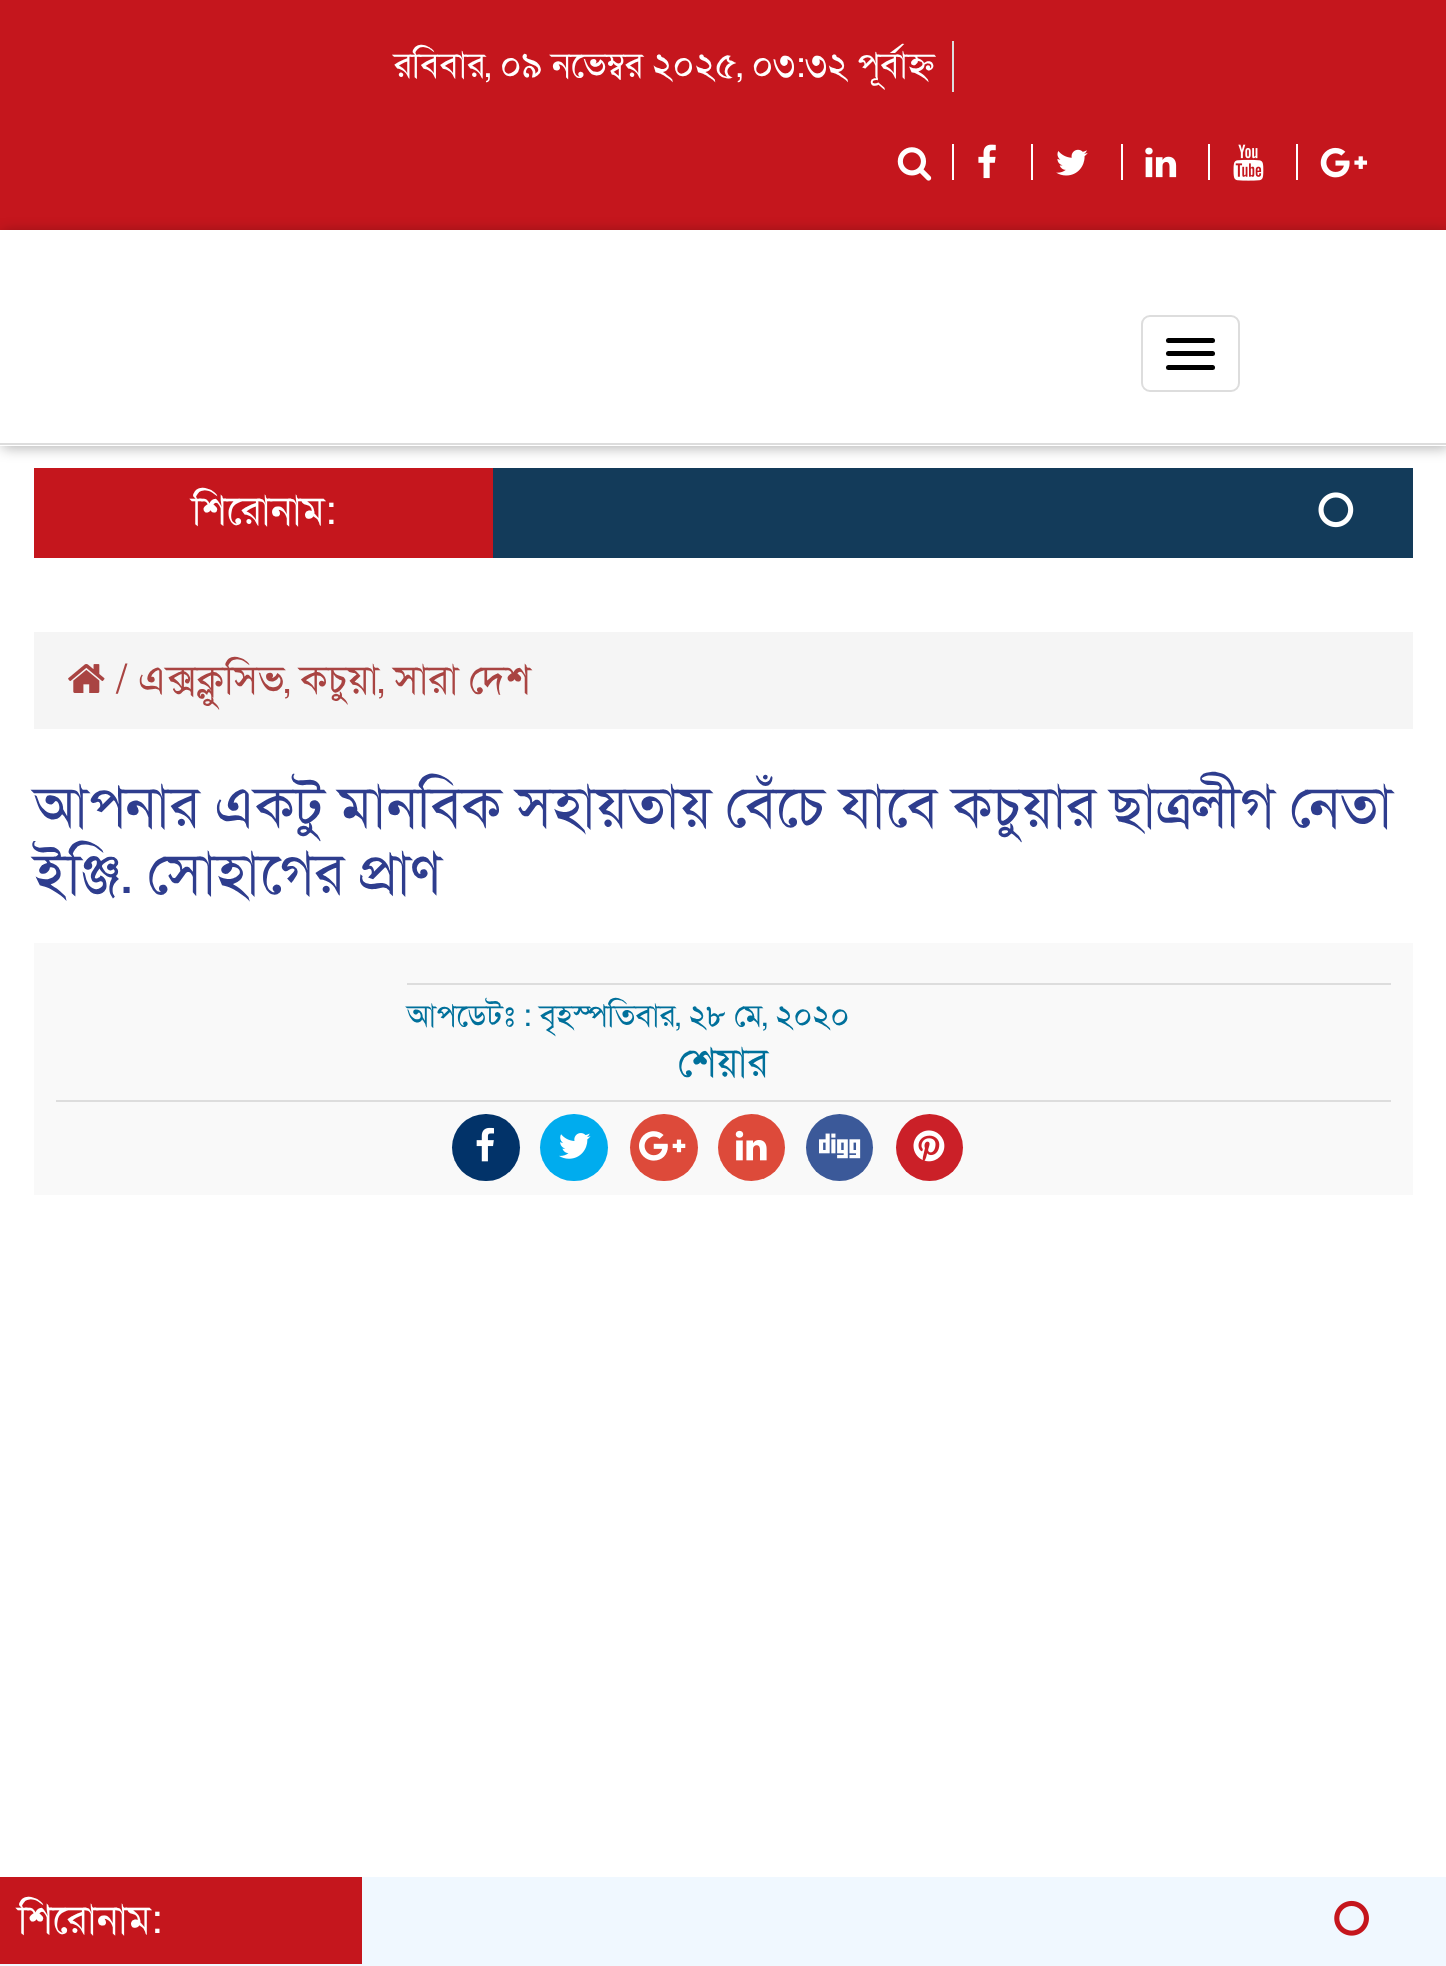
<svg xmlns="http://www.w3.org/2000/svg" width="1446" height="1966">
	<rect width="100%" height="100%" fill="#FFFFFF" />
	<rect x="0" y="0" width="1446" height="230" fill="#C5161D" />
	<rect x="952" y="41" width="2" height="51" fill="#DDDDDD" />
	<text x="394" y="77" font-family="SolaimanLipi" font-size="36" fill="#FFFFFF">রবিবার, ০৯ নভেম্বর ২০২৫, ০৩:৩২ পূর্বাহ্ন</text>
	<image x="897" y="147" width="35" height="34" href="assets/img1.png" />
	<rect x="952" y="144" width="2" height="36" fill="#FFFFFF" />
	<image x="978" y="144" width="18" height="35" href="assets/img2.png" />
	<rect x="1031" y="144" width="2" height="36" fill="#FFFFFF" />
	<image x="1056" y="149" width="32" height="27" href="assets/img3.png" />
	<rect x="1121" y="144" width="2" height="36" fill="#FFFFFF" />
	<image x="1145" y="147" width="32" height="31" href="assets/img4.png" />
	<rect x="1208" y="144" width="2" height="36" fill="#FFFFFF" />
	<image x="1233" y="144" width="31" height="37" href="assets/img5.png" />
	<rect x="1296" y="144" width="2" height="36" fill="#FFFFFF" />
	<image x="1320" y="147" width="48" height="31" href="assets/img6.png" />
	<rect x="2" y="232" width="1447" height="216" fill="#000000" fill-opacity="0.3" filter="blur(7px)" />
	<rect x="0" y="230" width="1446" height="216" fill="#FFFFFF" />
	<rect x="0" y="443" width="1446" height="2" fill="#DDDDDD" />
	<rect x="1142" y="316" width="97" height="75" rx="8" fill="none" stroke="#DDDDDD" stroke-width="2" />
	<rect x="1166" y="338" width="49" height="5" rx="2.5" fill="#000000" />
	<rect x="1166" y="351" width="49" height="5" rx="2.5" fill="#000000" />
	<rect x="1166" y="365" width="49" height="5" rx="2.5" fill="#000000" />
	<rect x="34" y="468" width="459" height="90" fill="#C5161D" />
	<text x="192" y="524" font-family="SolaimanLipi" font-size="40.5" fill="#FFFFFF">শিরোনাম:</text>
	<rect x="493" y="468" width="920" height="90" fill="#133B5A" />
	<image x="1318" y="492" width="36" height="36" href="assets/img7.png" />
	<rect x="34" y="632" width="1379" height="97" fill="#F5F5F5" />
	<image x="68" y="664" width="37" height="29" href="assets/img8.png" />
	<text x="116" y="693" font-family="SolaimanLipi" font-size="40.5" fill="#A94442">/ এক্সক্লুসিভ</text>
	<text x="284" y="693" font-family="SolaimanLipi" font-size="38" fill="#A94442">,</text>
	<text x="300" y="693" font-family="SolaimanLipi" font-size="40.5" fill="#A94442">কচুয়া</text>
	<text x="378" y="693" font-family="SolaimanLipi" font-size="38" fill="#A94442">,</text>
	<text x="394" y="693" font-family="SolaimanLipi" font-size="40.5" fill="#A94442">সারা দেশ</text>
	<g font-family="SolaimanLipi" font-size="58.5" fill="#2E3D8E">
		<text x="34" y="826">আপনার একটু মানবিক সহায়তায় বেঁচে যাবে কচুয়ার ছাত্রলীগ নেতা</text>
		<text x="34" y="893">ইঞ্জি. সোহাগের প্রাণ</text>
	</g>
	<rect x="34" y="943" width="1379" height="252" fill="#F9F9F9" />
	<rect x="407" y="983" width="984" height="2" fill="#DDDDDD" />
	<text x="407" y="1026" font-family="SolaimanLipi" font-size="31.5" fill="#00709B">আপডেটঃ : বৃহস্পতিবার, ২৮ মে, ২০২০</text>
	<rect x="56" y="1100" width="1335" height="2" fill="#DDDDDD" />
	<text x="678" y="1076" font-family="SolaimanLipi" font-size="40.5" fill="#00709B">শেয়ার</text>
	<rect x="452" y="1114" width="68" height="67" rx="33.5" fill="#023369" />
	<image x="476" y="1127" width="18" height="35" href="assets/img9.png" />
	<rect x="540" y="1114" width="68" height="67" rx="33.5" fill="#00ACEE" />
	<image x="559" y="1133" width="32" height="26" href="assets/img10.png" />
	<rect x="630" y="1114" width="68" height="67" rx="33.5" fill="#DD4A3A" />
	<image x="639" y="1131" width="47" height="30" href="assets/img11.png" />
	<circle cx="751.5" cy="1147.5" r="33.5" fill="#DD4A3A" />
	<image x="735" y="1130" width="32" height="31" href="assets/img12.png" />
	<circle cx="839.5" cy="1147.5" r="33.5" fill="#3B5999" />
	<image x="819" y="1133" width="42" height="26" href="assets/img13.png" />
	<circle cx="929.5" cy="1147.5" r="33.5" fill="#CB2028" />
	<image x="913" y="1130" width="32" height="32" href="assets/img14.png" />
	<rect x="0" y="1877" width="1446" height="89" fill="#F0F8FF" />
	<rect x="0" y="1877" width="362" height="87" fill="#C5161D" />
	<text x="18" y="1933" font-family="SolaimanLipi" font-size="40.5" fill="#FFFFFF">শিরোনাম:</text>
	<image x="1334" y="1900" width="35" height="36" href="assets/img15.png" />
</svg>
